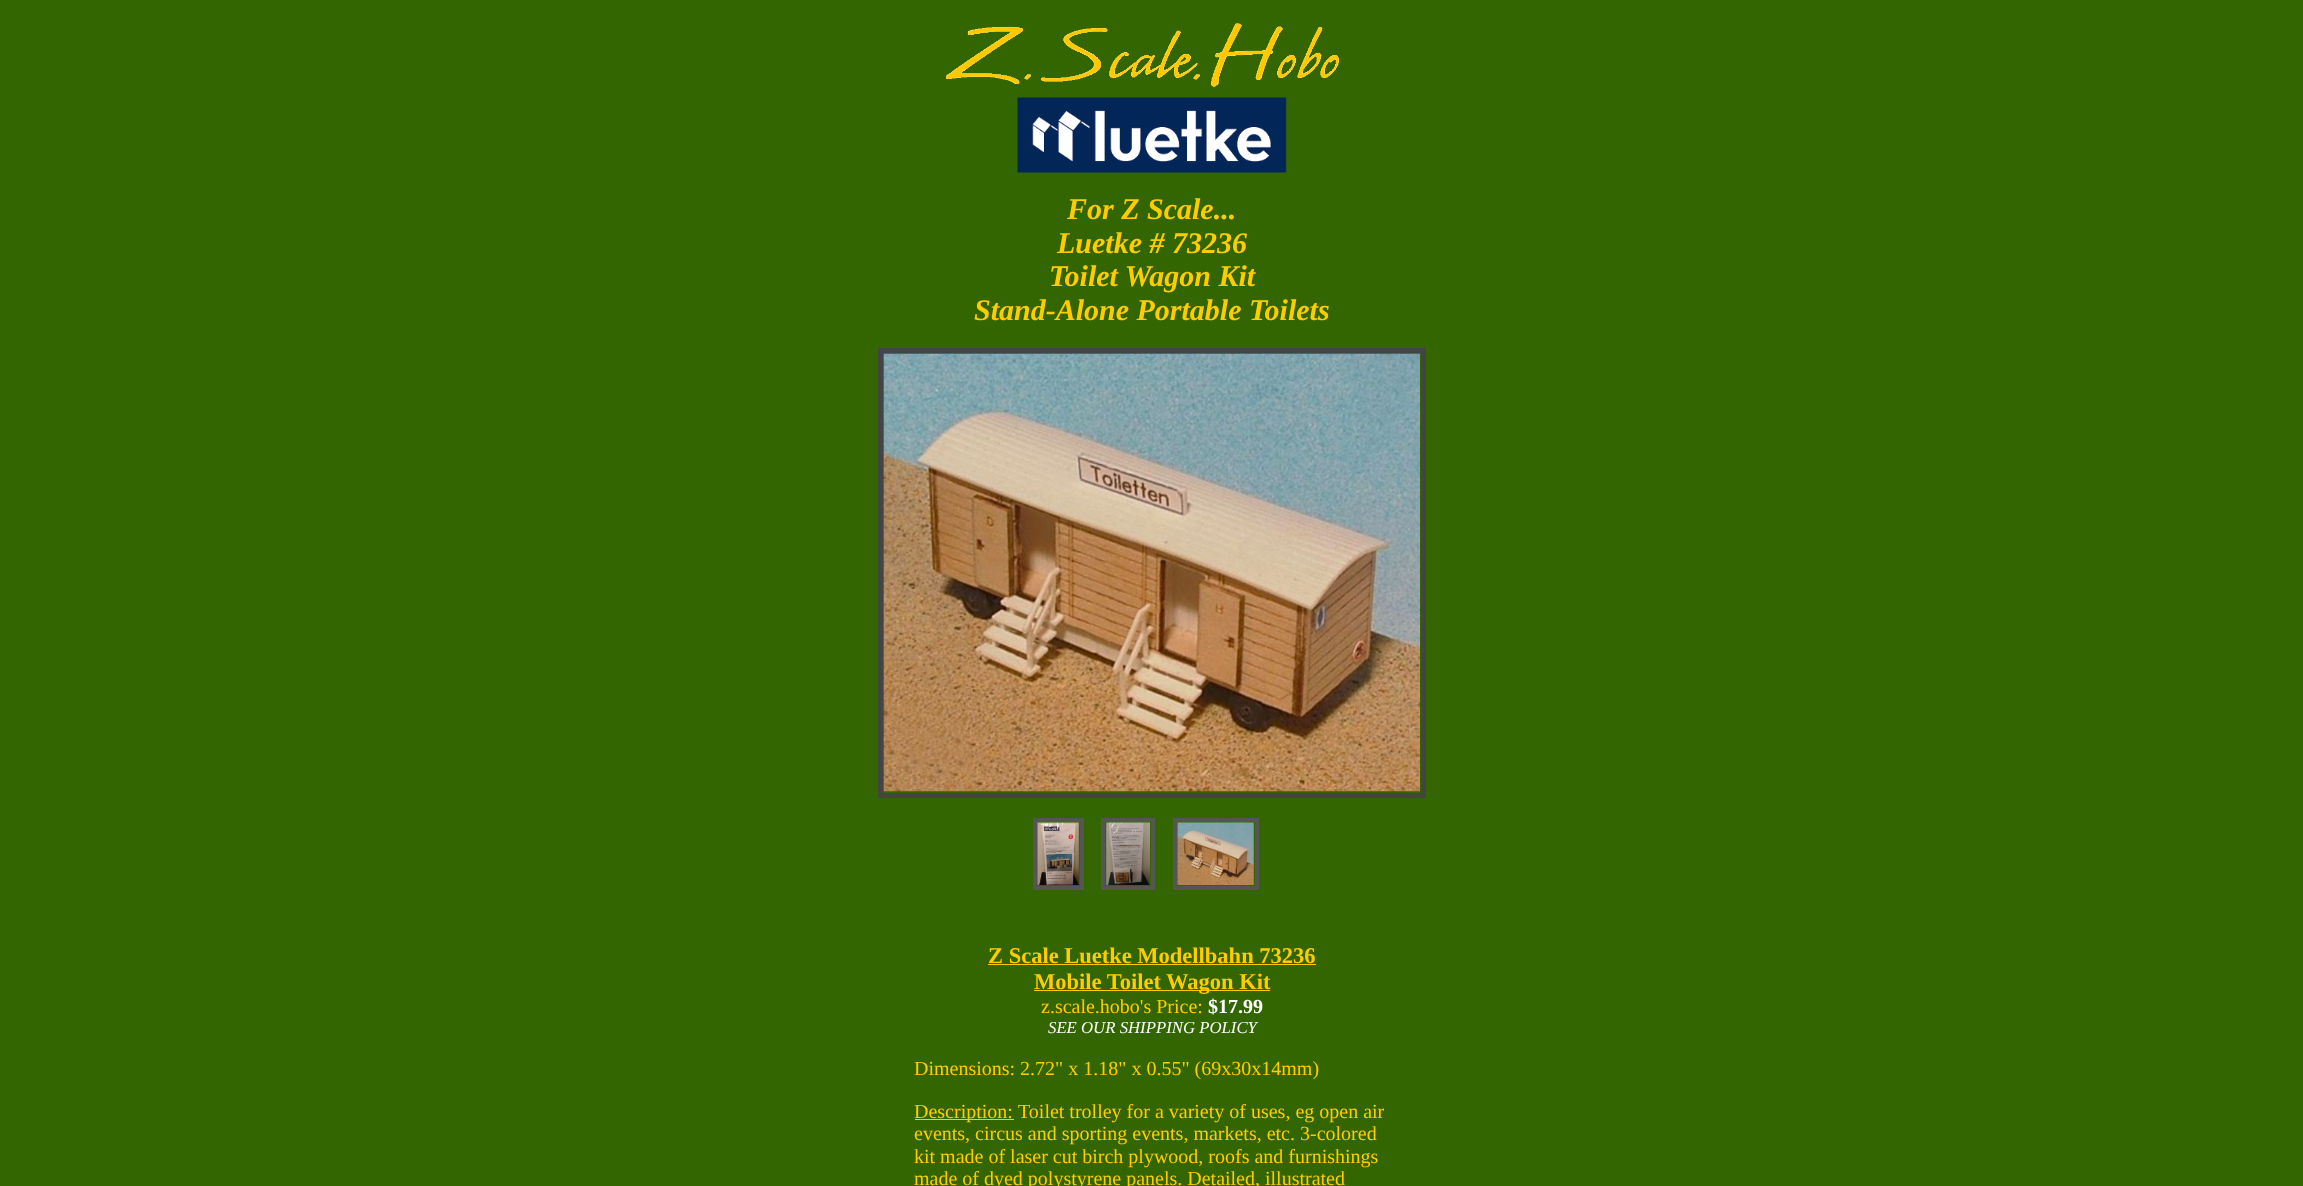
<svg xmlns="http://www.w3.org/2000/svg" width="2303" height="1186">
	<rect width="100%" height="100%" fill="#336600" />
	<image x="946" y="23" width="393" height="64" href="assets/img1.png" />
	<image x="1017" y="97" width="270" height="76" href="assets/img2.png" />
	<g font-family="Liberation Serif" font-size="30" font-weight="700" font-style="italic" fill="#FFCC00">
		<text x="1067" y="219">For Z Scale...</text>
		<text x="1057" y="253">Luetke # 73236</text>
		<text x="1049" y="286">Toilet Wagon Kit</text>
		<text x="974" y="320">Stand-Alone Portable Toilets</text>
	</g>
	<rect x="880.5" y="350.5" width="543" height="445" fill="none" stroke="#444444" stroke-width="5" />
	<image x="883" y="353" width="537" height="439" href="assets/img3.png" />
	<rect x="1035" y="820" width="47" height="68" fill="none" stroke="#555555" stroke-width="4" />
	<rect x="1103" y="820" width="50" height="68" fill="none" stroke="#555555" stroke-width="4" />
	<rect x="1175" y="820" width="82" height="68" fill="none" stroke="#555555" stroke-width="4" />
	<image x="1037" y="822" width="42" height="63" href="assets/img4.png" />
	<image x="1106" y="822" width="44" height="63" href="assets/img5.png" />
	<image x="1177" y="822" width="77" height="63" href="assets/img6.png" />
	<text x="988" y="963" font-family="Liberation Serif" font-size="22.5" font-weight="700" fill="#FFCC00">Z Scale Luetke Modellbahn 73236</text>
	<rect x="988" y="964" width="328" height="1" fill="#FFCC00" />
	<rect x="1034" y="990" width="236" height="1" fill="#FFCC00" />
	<text x="1034" y="989" font-family="Liberation Serif" font-size="22.5" font-weight="700" fill="#FFCC00">Mobile Toilet Wagon Kit</text>
	<text x="1041" y="1013" font-family="Liberation Serif" font-size="20" fill="#FFCC00">z.scale.hobo's Price:</text>
	<text x="1208" y="1013" font-family="Liberation Serif" font-size="20" font-weight="700" fill="#FFFFFF">$17.99</text>
	<text x="1048" y="1033" font-family="Liberation Serif" font-size="16.75" font-style="italic" fill="#FFFFFF">SEE OUR SHIPPING POLICY</text>
	<text x="914" y="1075" font-family="Liberation Serif" font-size="20" fill="#FFCC00">Dimensions: 2.72" x 1.18" x 0.55" (69x30x14mm)</text>
	<rect x="915" y="1119" width="99" height="1" fill="#FFCC00" />
	<g font-family="Liberation Serif" font-size="20" fill="#FFCC00">
		<text x="914" y="1118">Description:</text>
		<text x="1018" y="1118">Toilet trolley for a variety of uses, eg open air</text>
		<text x="914" y="1140">events, circus and sporting events, markets, etc. 3-colored</text>
		<text x="914" y="1163">kit made of laser cut birch plywood, roofs and furnishings</text>
		<text x="914" y="1185">made of dyed polystyrene panels. Detailed, illustrated</text>
	</g>
</svg>
